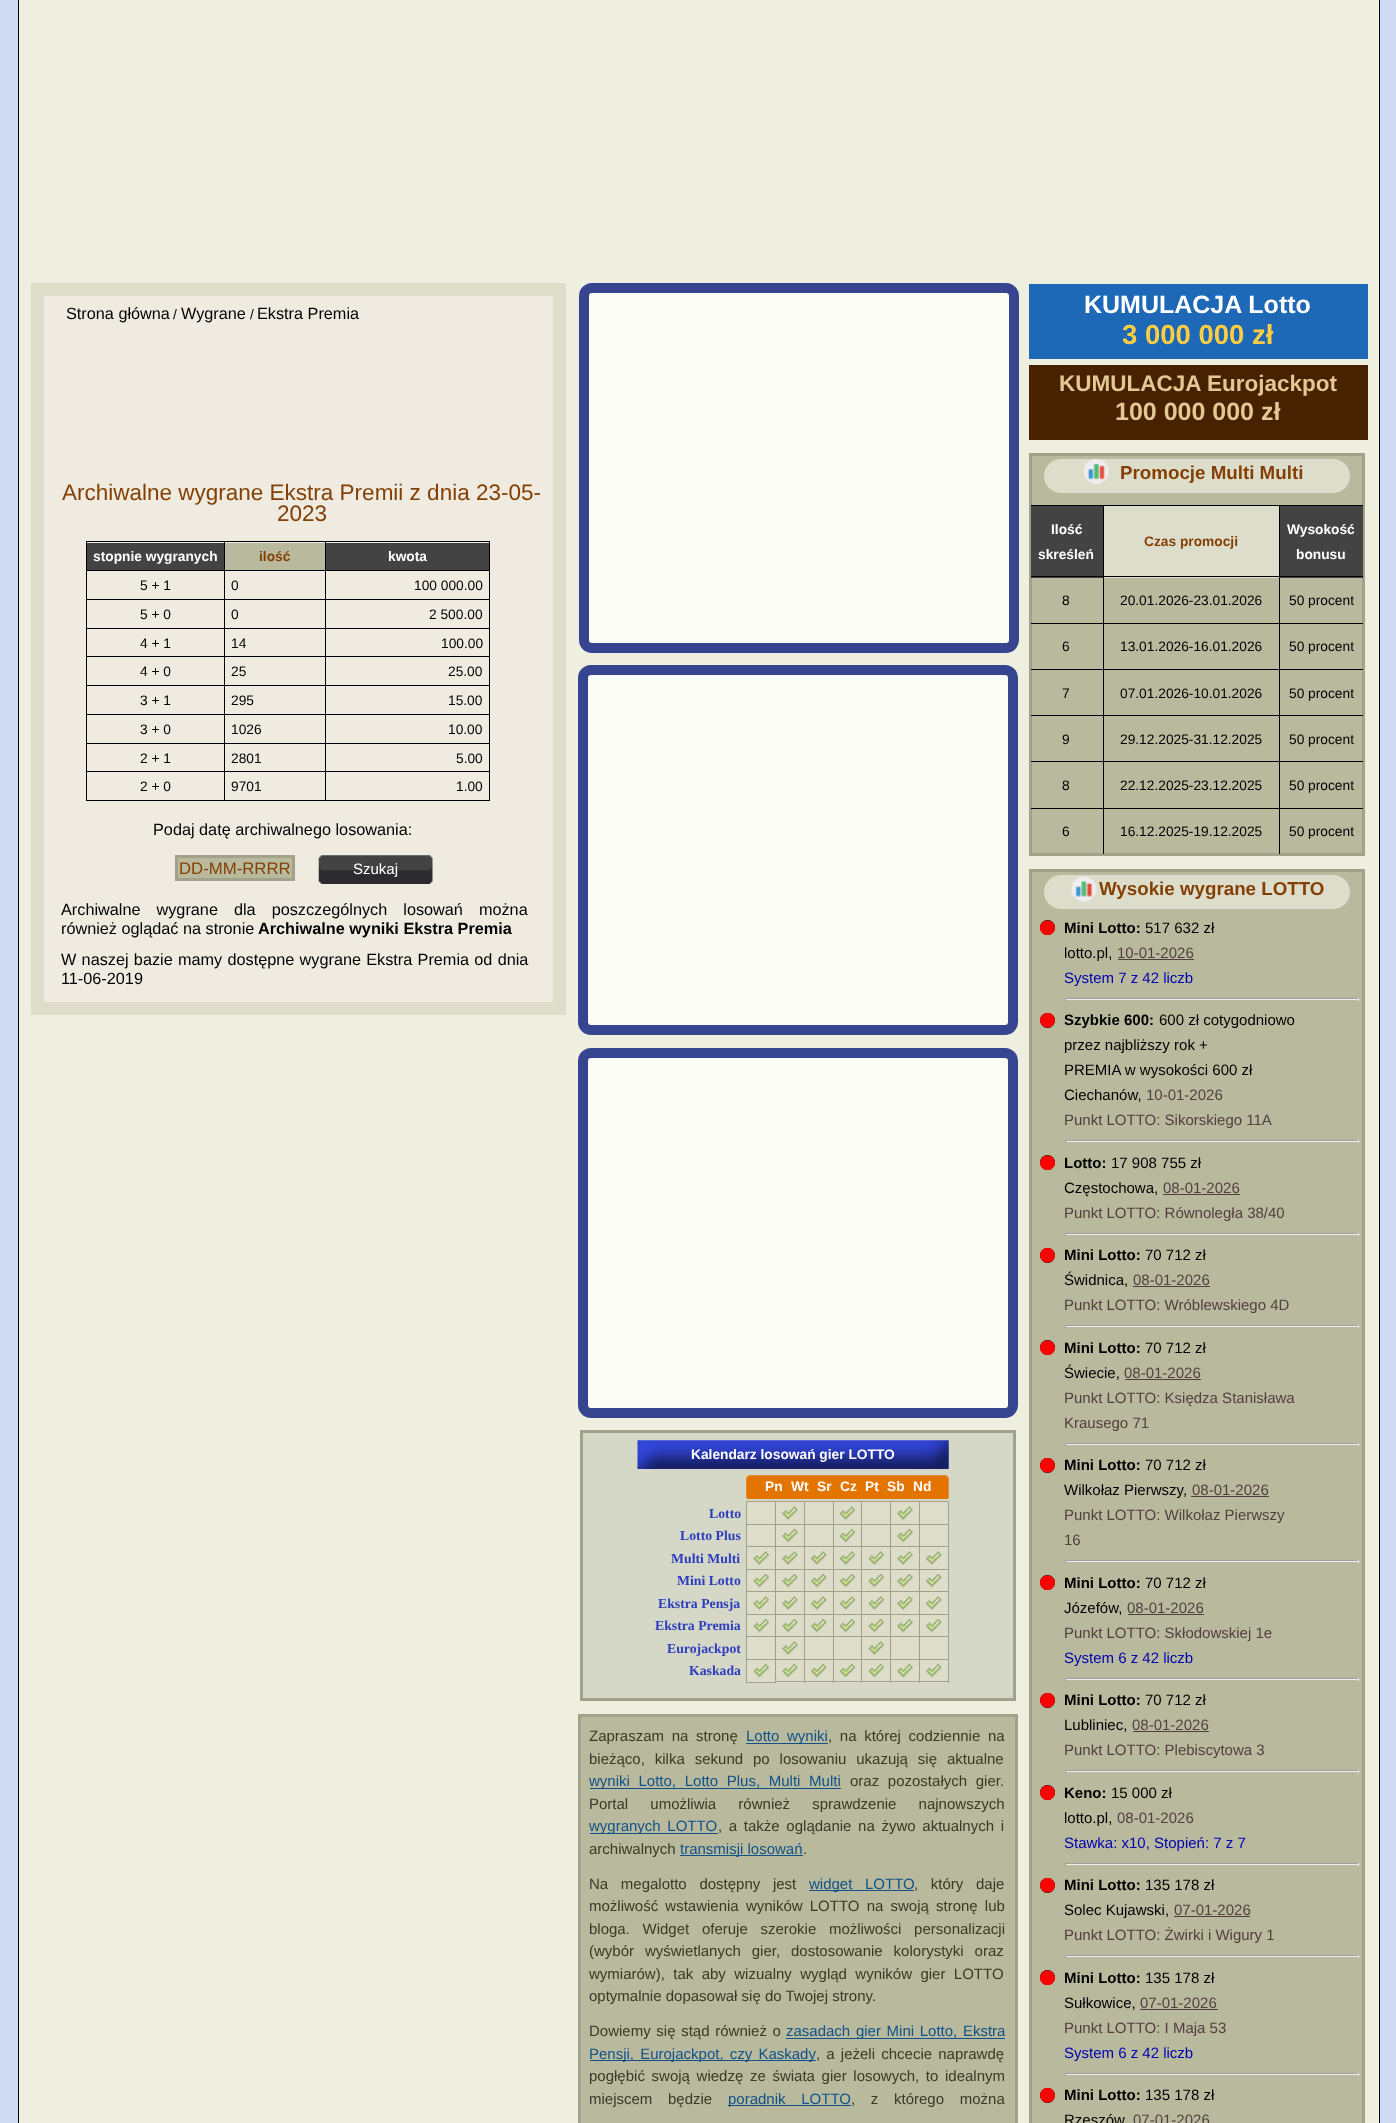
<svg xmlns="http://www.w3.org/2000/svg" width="1396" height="2123">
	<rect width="100%" height="100%" fill="#D0DAF3" />
	<rect x="19" y="0" width="1360" height="2123" fill="#EFEFDF" />
	<rect x="1379" y="0" width="1" height="2123" fill="#000000" />
	<rect x="18" y="0" width="1" height="2123" fill="#000000" />
	<rect x="37.5" y="289.5" width="522" height="719" fill="#EFEBE0" stroke="#DDDDCA" stroke-width="13" />
	<text x="66" y="319" font-family="Liberation Sans" font-size="16.25" fill="#000000">Strona główna</text>
	<text x="173" y="319" font-family="Liberation Sans" font-size="13.75" fill="#000000">/</text>
	<text x="181" y="319" font-family="Liberation Sans" font-size="16.25" fill="#000000">Wygrane</text>
	<text x="250" y="319" font-family="Liberation Sans" font-size="13.75" fill="#000000">/</text>
	<text x="257" y="319" font-family="Liberation Sans" font-size="16.25" fill="#000000">Ekstra Premia</text>
	<g font-family="Liberation Sans" font-size="22.5" fill="#844004">
		<text x="62" y="500">Archiwalne wygrane Ekstra Premii z dnia 23-05-</text>
		<text x="277" y="521">2023</text>
	</g>
	<rect x="86" y="541" width="404" height="1" fill="#000000" />
	<rect x="489" y="541" width="1" height="260" fill="#000000" />
	<rect x="86" y="800" width="404" height="1" fill="#000000" />
	<rect x="86" y="541" width="1" height="260" fill="#000000" />
	<rect x="87" y="543" width="137" height="27" fill="#434343" />
	<text x="93" y="561" font-family="Liberation Sans" font-size="13.75" font-weight="700" fill="#FFFFFF">stopnie wygranych</text>
	<rect x="225" y="543" width="100" height="27" fill="#B9B99D" />
	<rect x="325" y="570" width="165" height="1" fill="#000000" />
	<rect x="325" y="599" width="165" height="1" fill="#000000" />
	<rect x="325" y="628" width="165" height="1" fill="#000000" />
	<rect x="325" y="656" width="165" height="1" fill="#000000" />
	<rect x="325" y="685" width="165" height="1" fill="#000000" />
	<rect x="325" y="714" width="165" height="1" fill="#000000" />
	<rect x="325" y="743" width="165" height="1" fill="#000000" />
	<rect x="325" y="771" width="165" height="1" fill="#000000" />
	<rect x="325" y="771" width="1" height="30" fill="#000000" />
	<rect x="224" y="771" width="102" height="1" fill="#000000" />
	<rect x="325" y="743" width="1" height="30" fill="#000000" />
	<rect x="224" y="743" width="102" height="1" fill="#000000" />
	<rect x="325" y="714" width="1" height="30" fill="#000000" />
	<rect x="224" y="714" width="102" height="1" fill="#000000" />
	<rect x="325" y="685" width="1" height="30" fill="#000000" />
	<rect x="224" y="685" width="102" height="1" fill="#000000" />
	<rect x="325" y="656" width="1" height="30" fill="#000000" />
	<rect x="224" y="656" width="102" height="1" fill="#000000" />
	<rect x="325" y="628" width="1" height="30" fill="#000000" />
	<rect x="224" y="628" width="102" height="1" fill="#000000" />
	<rect x="325" y="599" width="1" height="30" fill="#000000" />
	<rect x="224" y="599" width="102" height="1" fill="#000000" />
	<rect x="325" y="570" width="1" height="30" fill="#000000" />
	<rect x="224" y="570" width="102" height="1" fill="#000000" />
	<rect x="224" y="771" width="1" height="30" fill="#000000" />
	<rect x="86" y="771" width="139" height="1" fill="#000000" />
	<rect x="224" y="743" width="1" height="30" fill="#000000" />
	<rect x="86" y="743" width="139" height="1" fill="#000000" />
	<rect x="224" y="714" width="1" height="30" fill="#000000" />
	<rect x="86" y="714" width="139" height="1" fill="#000000" />
	<rect x="224" y="685" width="1" height="30" fill="#000000" />
	<rect x="86" y="685" width="139" height="1" fill="#000000" />
	<rect x="224" y="656" width="1" height="30" fill="#000000" />
	<rect x="86" y="656" width="139" height="1" fill="#000000" />
	<rect x="224" y="628" width="1" height="30" fill="#000000" />
	<rect x="86" y="628" width="139" height="1" fill="#000000" />
	<rect x="224" y="599" width="1" height="30" fill="#000000" />
	<rect x="86" y="599" width="139" height="1" fill="#000000" />
	<rect x="224" y="570" width="1" height="30" fill="#000000" />
	<rect x="86" y="570" width="139" height="1" fill="#000000" />
	<rect x="224" y="541" width="1" height="30" fill="#000000" />
	<text x="259" y="561" font-family="Liberation Sans" font-size="13.75" font-weight="700" fill="#844004">ilość</text>
	<rect x="326" y="543" width="163" height="27" fill="#434343" />
	<rect x="325" y="541" width="1" height="30" fill="#000000" />
	<text x="388" y="561" font-family="Liberation Sans" font-size="13.75" font-weight="700" fill="#FFFFFF">kwota</text>
	<g font-family="Liberation Sans" font-size="13.75" fill="#000000">
		<text x="140" y="590">5 + 1</text>
		<text x="231" y="590">0</text>
		<text x="414" y="590">100 000.00</text>
		<text x="140" y="619">5 + 0</text>
		<text x="231" y="619">0</text>
		<text x="429" y="619">2 500.00</text>
		<text x="140" y="648">4 + 1</text>
		<text x="231" y="648">14</text>
		<text x="441" y="648">100.00</text>
		<text x="140" y="676">4 + 0</text>
		<text x="231" y="676">25</text>
		<text x="448" y="676">25.00</text>
		<text x="140" y="705">3 + 1</text>
		<text x="231" y="705">295</text>
		<text x="448" y="705">15.00</text>
		<text x="140" y="734">3 + 0</text>
		<text x="231" y="734">1026</text>
		<text x="448" y="734">10.00</text>
		<text x="140" y="763">2 + 1</text>
		<text x="231" y="763">2801</text>
		<text x="456" y="763">5.00</text>
		<text x="140" y="791">2 + 0</text>
		<text x="231" y="791">9701</text>
		<text x="456" y="791">1.00</text>
	</g>
	<text x="153" y="835" font-family="Liberation Sans" font-size="16.25" fill="#000000">Podaj datę archiwalnego losowania:</text>
	<rect x="176.5" y="856.5" width="117" height="23" fill="#B9B99D" stroke="#A2A28A" stroke-width="3" />
	<text x="179" y="874" font-family="Liberation Sans" font-size="16.75" fill="#844004">DD-MM-RRRR</text>
	<rect x="319" y="855" width="114" height="29" fill="#EFEFEF" />
	<image x="318" y="855" width="115" height="29" href="assets/img1.png" />
	<text x="353" y="874" font-family="Liberation Sans" font-size="15" fill="#FFFFFF">Szukaj</text>
	<g font-family="Liberation Sans" font-size="16.25" fill="#000000">
		<text x="61" y="915" word-spacing="11.5">Archiwalne wygrane dla poszczególnych losowań można</text>
		<text x="61" y="934">również oglądać na stronie</text>
	</g>
	<text x="258" y="934" font-family="Liberation Sans" font-size="16.25" font-weight="700" fill="#000000">Archiwalne wyniki Ekstra Premia</text>
	<g font-family="Liberation Sans" font-size="16.25" fill="#000000">
		<text x="61" y="965" word-spacing="0.75">W naszej bazie mamy dostępne wygrane Ekstra Premia od dnia</text>
		<text x="61" y="984">11-06-2019</text>
	</g>
	<rect x="1029" y="284" width="339" height="75" fill="#1D68B7" />
	<text x="1084" y="313" font-family="Liberation Sans" font-size="25" font-weight="700" fill="#FFFFFF">KUMULACJA Lotto</text>
	<text x="1122" y="344" font-family="Liberation Sans" font-size="27.5" font-weight="700" fill="#FFCD41">3 000 000 zł</text>
	<rect x="1029" y="365" width="339" height="75" fill="#482101" />
	<text x="1059" y="391" font-family="Liberation Sans" font-size="22.5" font-weight="700" fill="#E3C896">KUMULACJA Eurojackpot</text>
	<text x="1115" y="420" font-family="Liberation Sans" font-size="25" font-weight="700" fill="#E3C896">100 000 000 zł</text>
	<rect x="1030.5" y="454.5" width="333" height="400" fill="#B9B99D" stroke="#A2A28A" stroke-width="3" />
	<rect x="1044" y="459" width="306" height="34" rx="17" fill="#DDDDCB" />
	<image x="1083" y="459" width="26" height="25" href="assets/img2.png" />
	<text x="1120" y="479" font-family="Liberation Sans" font-size="18.75" font-weight="700" fill="#844004">Promocje Multi Multi</text>
	<rect x="1031" y="506" width="72" height="72" fill="#434343" />
	<rect x="1031" y="505" width="332" height="1" fill="#000000" />
	<rect x="1103" y="505" width="1" height="349" fill="#000000" />
	<rect x="1031" y="576" width="73" height="1" fill="#000000" />
	<g font-family="Liberation Sans" font-size="13.75" font-weight="700" fill="#FFFFFF">
		<text x="1051" y="534">Ilość</text>
		<text x="1038" y="559">skreśleń</text>
	</g>
	<rect x="1104" y="506" width="175" height="72" fill="#DDDDCB" />
	<rect x="1104" y="576" width="175" height="1" fill="#000000" />
	<text x="1144" y="546" font-family="Liberation Sans" font-size="13.75" font-weight="700" fill="#844004">Czas promocji</text>
	<rect x="1280" y="506" width="83" height="72" fill="#434343" />
	<rect x="1279" y="576" width="84" height="1" fill="#000000" />
	<rect x="1279" y="505" width="1" height="73" fill="#000000" />
	<g font-family="Liberation Sans" font-size="13.75" font-weight="700" fill="#FFFFFF">
		<text x="1287" y="534">Wysokość</text>
		<text x="1296" y="559">bonusu</text>
	</g>
	<rect x="1031" y="623" width="332" height="1" fill="#000000" />
	<g font-family="Liberation Sans" font-size="13.75" fill="#000000">
		<text x="1062" y="605">8</text>
		<text x="1120" y="605">20.01.2026-23.01.2026</text>
	</g>
	<rect x="1279" y="578" width="1" height="46" fill="#000000" />
	<text x="1289" y="605" font-family="Liberation Sans" font-size="13.75" fill="#000000">50 procent</text>
	<rect x="1031" y="669" width="332" height="1" fill="#000000" />
	<g font-family="Liberation Sans" font-size="13.75" fill="#000000">
		<text x="1062" y="651">6</text>
		<text x="1120" y="651">13.01.2026-16.01.2026</text>
	</g>
	<rect x="1279" y="624" width="1" height="46" fill="#000000" />
	<text x="1289" y="651" font-family="Liberation Sans" font-size="13.75" fill="#000000">50 procent</text>
	<rect x="1031" y="715" width="332" height="1" fill="#000000" />
	<g font-family="Liberation Sans" font-size="13.75" fill="#000000">
		<text x="1062" y="698">7</text>
		<text x="1120" y="698">07.01.2026-10.01.2026</text>
	</g>
	<rect x="1279" y="670" width="1" height="46" fill="#000000" />
	<text x="1289" y="698" font-family="Liberation Sans" font-size="13.75" fill="#000000">50 procent</text>
	<rect x="1031" y="761" width="332" height="1" fill="#000000" />
	<g font-family="Liberation Sans" font-size="13.75" fill="#000000">
		<text x="1062" y="744">9</text>
		<text x="1120" y="744">29.12.2025-31.12.2025</text>
	</g>
	<rect x="1279" y="716" width="1" height="47" fill="#000000" />
	<text x="1289" y="744" font-family="Liberation Sans" font-size="13.75" fill="#000000">50 procent</text>
	<rect x="1031" y="808" width="332" height="1" fill="#000000" />
	<g font-family="Liberation Sans" font-size="13.75" fill="#000000">
		<text x="1062" y="790">8</text>
		<text x="1120" y="790">22.12.2025-23.12.2025</text>
	</g>
	<rect x="1279" y="763" width="1" height="91" fill="#000000" />
	<g font-family="Liberation Sans" font-size="13.75" fill="#000000">
		<text x="1289" y="790">50 procent</text>
		<text x="1062" y="836">6</text>
		<text x="1120" y="836">16.12.2025-19.12.2025</text>
		<text x="1289" y="836">50 procent</text>
	</g>
	<rect x="1030.5" y="870.5" width="333" height="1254" fill="#B9B99D" stroke="#A2A28A" stroke-width="3" />
	<rect x="1044" y="875" width="306" height="34" rx="17" fill="#DDDDCB" />
	<image x="1071" y="876" width="26" height="26" href="assets/img3.png" />
	<text x="1099" y="895" font-family="Liberation Sans" font-size="18.75" font-weight="700" fill="#844004">Wysokie wygrane LOTTO</text>
	<circle cx="1047.5" cy="927.5" r="7.5" fill="#001122" />
	<image x="1040" y="920" width="15" height="16" href="assets/img4.png" />
	<text x="1064" y="933" font-family="Liberation Sans" font-size="15" font-weight="700" fill="#000000">Mini Lotto:</text>
	<g font-family="Liberation Sans" font-size="15" fill="#000000">
		<text x="1145" y="933">517 632 zł</text>
		<text x="1064" y="958">lotto.pl,</text>
	</g>
	<text x="1117" y="958" font-family="Liberation Sans" font-size="15" fill="#524040">10-01-2026</text>
	<rect x="1118" y="959" width="76" height="1" fill="#524040" />
	<text x="1064" y="983" font-family="Liberation Sans" font-size="15" fill="#0000B3">System 7 z 42 liczb</text>
	<rect x="1065" y="998" width="294" height="1" fill="#9F9F9F" />
	<rect x="1358" y="998" width="1" height="3" fill="#EEEEEE" />
	<rect x="1065" y="999" width="294" height="1" fill="#EEEEEE" />
	<rect x="1065" y="998" width="1" height="3" fill="#9F9F9F" />
	<circle cx="1047.5" cy="1020.5" r="7.5" fill="#001122" />
	<image x="1040" y="1012" width="15" height="16" href="assets/img5.png" />
	<text x="1064" y="1025" font-family="Liberation Sans" font-size="15" font-weight="700" fill="#000000">Szybkie 600:</text>
	<g font-family="Liberation Sans" font-size="15" fill="#000000">
		<text x="1159" y="1025">600 zł cotygodniowo</text>
		<text x="1064" y="1050">przez najbliższy rok +</text>
		<text x="1064" y="1075">PREMIA w wysokości 600 zł</text>
		<text x="1064" y="1100">Ciechanów,</text>
	</g>
	<g font-family="Liberation Sans" font-size="15" fill="#524040">
		<text x="1146" y="1100">10-01-2026</text>
		<text x="1064" y="1125">Punkt LOTTO: Sikorskiego 11A</text>
	</g>
	<rect x="1065" y="1140" width="294" height="1" fill="#9F9F9F" />
	<rect x="1358" y="1140" width="1" height="3" fill="#EEEEEE" />
	<rect x="1065" y="1141" width="294" height="1" fill="#EEEEEE" />
	<rect x="1065" y="1140" width="1" height="3" fill="#9F9F9F" />
	<circle cx="1047.5" cy="1162.5" r="7.5" fill="#001122" />
	<image x="1040" y="1155" width="15" height="16" href="assets/img4.png" />
	<text x="1064" y="1168" font-family="Liberation Sans" font-size="15" font-weight="700" fill="#000000">Lotto:</text>
	<g font-family="Liberation Sans" font-size="15" fill="#000000">
		<text x="1111" y="1168">17 908 755 zł</text>
		<text x="1064" y="1193">Częstochowa,</text>
	</g>
	<text x="1163" y="1193" font-family="Liberation Sans" font-size="15" fill="#524040">08-01-2026</text>
	<rect x="1163" y="1194" width="77" height="1" fill="#524040" />
	<text x="1064" y="1218" font-family="Liberation Sans" font-size="15" fill="#524040">Punkt LOTTO: Równoległa 38/40</text>
	<rect x="1065" y="1233" width="294" height="1" fill="#9F9F9F" />
	<rect x="1358" y="1233" width="1" height="3" fill="#EEEEEE" />
	<rect x="1065" y="1234" width="294" height="1" fill="#EEEEEE" />
	<rect x="1065" y="1233" width="1" height="3" fill="#9F9F9F" />
	<circle cx="1047.5" cy="1255.5" r="7.5" fill="#001122" />
	<image x="1040" y="1247" width="15" height="16" href="assets/img5.png" />
	<text x="1064" y="1260" font-family="Liberation Sans" font-size="15" font-weight="700" fill="#000000">Mini Lotto:</text>
	<g font-family="Liberation Sans" font-size="15" fill="#000000">
		<text x="1145" y="1260">70 712 zł</text>
		<text x="1064" y="1285">Świdnica,</text>
	</g>
	<text x="1133" y="1285" font-family="Liberation Sans" font-size="15" fill="#524040">08-01-2026</text>
	<rect x="1133" y="1286" width="77" height="1" fill="#524040" />
	<text x="1064" y="1310" font-family="Liberation Sans" font-size="15" fill="#524040">Punkt LOTTO: Wróblewskiego 4D</text>
	<rect x="1065" y="1325" width="294" height="1" fill="#9F9F9F" />
	<rect x="1358" y="1325" width="1" height="3" fill="#EEEEEE" />
	<rect x="1065" y="1326" width="294" height="1" fill="#EEEEEE" />
	<rect x="1065" y="1325" width="1" height="3" fill="#9F9F9F" />
	<circle cx="1047.5" cy="1347.5" r="7.5" fill="#001122" />
	<image x="1040" y="1340" width="15" height="16" href="assets/img4.png" />
	<text x="1064" y="1353" font-family="Liberation Sans" font-size="15" font-weight="700" fill="#000000">Mini Lotto:</text>
	<g font-family="Liberation Sans" font-size="15" fill="#000000">
		<text x="1145" y="1353">70 712 zł</text>
		<text x="1064" y="1378">Świecie,</text>
	</g>
	<text x="1124" y="1378" font-family="Liberation Sans" font-size="15" fill="#524040">08-01-2026</text>
	<rect x="1125" y="1379" width="76" height="1" fill="#524040" />
	<g font-family="Liberation Sans" font-size="15" fill="#524040">
		<text x="1064" y="1403">Punkt LOTTO: Księdza Stanisława</text>
		<text x="1064" y="1428">Krausego 71</text>
	</g>
	<rect x="1065" y="1443" width="294" height="1" fill="#9F9F9F" />
	<rect x="1358" y="1443" width="1" height="3" fill="#EEEEEE" />
	<rect x="1065" y="1444" width="294" height="1" fill="#EEEEEE" />
	<rect x="1065" y="1443" width="1" height="3" fill="#9F9F9F" />
	<circle cx="1047.5" cy="1465.5" r="7.5" fill="#001122" />
	<image x="1040" y="1457" width="15" height="16" href="assets/img6.png" />
	<text x="1064" y="1470" font-family="Liberation Sans" font-size="15" font-weight="700" fill="#000000">Mini Lotto:</text>
	<g font-family="Liberation Sans" font-size="15" fill="#000000">
		<text x="1145" y="1470">70 712 zł</text>
		<text x="1064" y="1495">Wilkołaz Pierwszy,</text>
	</g>
	<text x="1192" y="1495" font-family="Liberation Sans" font-size="15" fill="#524040">08-01-2026</text>
	<rect x="1191" y="1496" width="78" height="1" fill="#524040" />
	<g font-family="Liberation Sans" font-size="15" fill="#524040">
		<text x="1064" y="1520">Punkt LOTTO: Wilkołaz Pierwszy</text>
		<text x="1064" y="1545">16</text>
	</g>
	<rect x="1065" y="1560" width="294" height="1" fill="#9F9F9F" />
	<rect x="1358" y="1560" width="1" height="3" fill="#EEEEEE" />
	<rect x="1065" y="1561" width="294" height="1" fill="#EEEEEE" />
	<rect x="1065" y="1560" width="1" height="3" fill="#9F9F9F" />
	<circle cx="1047.5" cy="1582.5" r="7.5" fill="#001122" />
	<image x="1040" y="1575" width="15" height="16" href="assets/img4.png" />
	<text x="1064" y="1588" font-family="Liberation Sans" font-size="15" font-weight="700" fill="#000000">Mini Lotto:</text>
	<g font-family="Liberation Sans" font-size="15" fill="#000000">
		<text x="1145" y="1588">70 712 zł</text>
		<text x="1064" y="1613">Józefów,</text>
	</g>
	<text x="1127" y="1613" font-family="Liberation Sans" font-size="15" fill="#524040">08-01-2026</text>
	<rect x="1128" y="1614" width="76" height="1" fill="#524040" />
	<text x="1064" y="1638" font-family="Liberation Sans" font-size="15" fill="#524040">Punkt LOTTO: Skłodowskiej 1e</text>
	<text x="1064" y="1663" font-family="Liberation Sans" font-size="15" fill="#0000B3">System 6 z 42 liczb</text>
	<rect x="1065" y="1678" width="294" height="1" fill="#9F9F9F" />
	<rect x="1358" y="1678" width="1" height="3" fill="#EEEEEE" />
	<rect x="1065" y="1679" width="294" height="1" fill="#EEEEEE" />
	<rect x="1065" y="1678" width="1" height="3" fill="#9F9F9F" />
	<circle cx="1047.5" cy="1700.5" r="7.5" fill="#001122" />
	<image x="1040" y="1692" width="15" height="16" href="assets/img5.png" />
	<text x="1064" y="1705" font-family="Liberation Sans" font-size="15" font-weight="700" fill="#000000">Mini Lotto:</text>
	<g font-family="Liberation Sans" font-size="15" fill="#000000">
		<text x="1145" y="1705">70 712 zł</text>
		<text x="1064" y="1730">Lubliniec,</text>
	</g>
	<text x="1132" y="1730" font-family="Liberation Sans" font-size="15" fill="#524040">08-01-2026</text>
	<rect x="1133" y="1731" width="76" height="1" fill="#524040" />
	<text x="1064" y="1755" font-family="Liberation Sans" font-size="15" fill="#524040">Punkt LOTTO: Plebiscytowa 3</text>
	<rect x="1065" y="1770" width="294" height="1" fill="#9F9F9F" />
	<rect x="1358" y="1770" width="1" height="3" fill="#EEEEEE" />
	<rect x="1065" y="1771" width="294" height="1" fill="#EEEEEE" />
	<rect x="1065" y="1770" width="1" height="3" fill="#9F9F9F" />
	<circle cx="1047.5" cy="1792.5" r="7.5" fill="#001122" />
	<image x="1040" y="1785" width="15" height="16" href="assets/img4.png" />
	<text x="1064" y="1798" font-family="Liberation Sans" font-size="15" font-weight="700" fill="#000000">Keno:</text>
	<g font-family="Liberation Sans" font-size="15" fill="#000000">
		<text x="1111" y="1798">15 000 zł</text>
		<text x="1064" y="1823">lotto.pl,</text>
	</g>
	<text x="1117" y="1823" font-family="Liberation Sans" font-size="15" fill="#524040">08-01-2026</text>
	<text x="1064" y="1848" font-family="Liberation Sans" font-size="15" fill="#0000B3">Stawka: x10, Stopień: 7 z 7</text>
	<rect x="1065" y="1863" width="294" height="1" fill="#9F9F9F" />
	<rect x="1358" y="1863" width="1" height="3" fill="#EEEEEE" />
	<rect x="1065" y="1864" width="294" height="1" fill="#EEEEEE" />
	<rect x="1065" y="1863" width="1" height="3" fill="#9F9F9F" />
	<circle cx="1047.5" cy="1885.5" r="7.5" fill="#001122" />
	<image x="1040" y="1877" width="15" height="16" href="assets/img5.png" />
	<text x="1064" y="1890" font-family="Liberation Sans" font-size="15" font-weight="700" fill="#000000">Mini Lotto:</text>
	<g font-family="Liberation Sans" font-size="15" fill="#000000">
		<text x="1145" y="1890">135 178 zł</text>
		<text x="1064" y="1915">Solec Kujawski,</text>
	</g>
	<text x="1174" y="1915" font-family="Liberation Sans" font-size="15" fill="#524040">07-01-2026</text>
	<rect x="1174" y="1916" width="76" height="1" fill="#524040" />
	<text x="1064" y="1940" font-family="Liberation Sans" font-size="15" fill="#524040">Punkt LOTTO: Żwirki i Wigury 1</text>
	<rect x="1065" y="1955" width="294" height="1" fill="#9F9F9F" />
	<rect x="1358" y="1955" width="1" height="3" fill="#EEEEEE" />
	<rect x="1065" y="1956" width="294" height="1" fill="#EEEEEE" />
	<rect x="1065" y="1955" width="1" height="3" fill="#9F9F9F" />
	<circle cx="1047.5" cy="1977.5" r="7.5" fill="#001122" />
	<image x="1040" y="1970" width="15" height="16" href="assets/img7.png" />
	<text x="1064" y="1983" font-family="Liberation Sans" font-size="15" font-weight="700" fill="#000000">Mini Lotto:</text>
	<g font-family="Liberation Sans" font-size="15" fill="#000000">
		<text x="1145" y="1983">135 178 zł</text>
		<text x="1064" y="2008">Sułkowice,</text>
	</g>
	<text x="1140" y="2008" font-family="Liberation Sans" font-size="15" fill="#524040">07-01-2026</text>
	<rect x="1140" y="2009" width="78" height="1" fill="#524040" />
	<text x="1064" y="2033" font-family="Liberation Sans" font-size="15" fill="#524040">Punkt LOTTO: I Maja 53</text>
	<text x="1064" y="2058" font-family="Liberation Sans" font-size="15" fill="#0000B3">System 6 z 42 liczb</text>
	<rect x="1065" y="2073" width="294" height="1" fill="#9F9F9F" />
	<rect x="1358" y="2073" width="1" height="3" fill="#EEEEEE" />
	<rect x="1065" y="2074" width="294" height="1" fill="#EEEEEE" />
	<rect x="1065" y="2073" width="1" height="3" fill="#9F9F9F" />
	<circle cx="1047.5" cy="2095.5" r="7.5" fill="#001122" />
	<image x="1040" y="2087" width="15" height="16" href="assets/img5.png" />
	<text x="1064" y="2100" font-family="Liberation Sans" font-size="15" font-weight="700" fill="#000000">Mini Lotto:</text>
	<g font-family="Liberation Sans" font-size="15" fill="#000000">
		<text x="1145" y="2100">135 178 zł</text>
		<text x="1064" y="2125">Rzeszów,</text>
	</g>
	<text x="1133" y="2125" font-family="Liberation Sans" font-size="15" fill="#524040">07-01-2026</text>
	<rect x="584" y="288" width="430" height="360" rx="8" fill="#FDFDF7" stroke="#374591" stroke-width="10" />
	<rect x="583" y="670" width="430" height="360" rx="8" fill="#FDFDF7" stroke="#374591" stroke-width="10" />
	<rect x="583" y="1053" width="430" height="360" rx="8" fill="#FDFDF7" stroke="#374591" stroke-width="10" />
	<rect x="581.5" y="1431.5" width="433" height="268" fill="#D5D7C7" stroke="#A2A28A" stroke-width="3" />
	<image x="637" y="1440" width="312" height="29" href="assets/img8.png" />
	<text x="691" y="1459" font-family="Liberation Sans" font-size="13.75" font-weight="700" fill="#FFFFFF">Kalendarz losowań gier LOTTO</text>
	<image x="746" y="1475" width="203" height="24" href="assets/img9.png" />
	<g font-family="Liberation Sans" font-size="13.75" font-weight="700" fill="#FFFFFF">
		<text x="765" y="1491">Pn</text>
		<text x="791" y="1491">Wt</text>
		<text x="817" y="1491">Sr</text>
		<text x="840" y="1491">Cz</text>
		<text x="865" y="1491">Pt</text>
		<text x="887" y="1491">Sb</text>
		<text x="913" y="1491">Nd</text>
	</g>
	<rect x="747" y="1502" width="28" height="22" fill="#DDDDCA" />
	<rect x="746" y="1501" width="203" height="1" fill="#A2A28A" />
	<rect x="775" y="1501" width="1" height="23" fill="#A2A28A" />
	<rect x="746" y="1501" width="1" height="23" fill="#A2A28A" />
	<text x="709" y="1518" font-family="Liberation Serif" font-size="13.75" font-weight="700" fill="#2C3DBF">Lotto</text>
	<rect x="776" y="1502" width="28" height="22" fill="#DDDDCA" />
	<image x="782" y="1506" width="16" height="14" href="assets/img10.png" />
	<rect x="804" y="1501" width="1" height="23" fill="#A2A28A" />
	<rect x="805" y="1502" width="28" height="22" fill="#DDDDCA" />
	<rect x="833" y="1501" width="1" height="23" fill="#A2A28A" />
	<rect x="834" y="1502" width="56" height="22" fill="#DDDDCA" />
	<image x="840" y="1506" width="15" height="15" href="assets/img11.png" />
	<rect x="861" y="1501" width="1" height="23" fill="#A2A28A" />
	<rect x="890" y="1501" width="1" height="23" fill="#A2A28A" />
	<rect x="891" y="1502" width="28" height="22" fill="#DDDDCA" />
	<image x="897" y="1506" width="16" height="14" href="assets/img10.png" />
	<rect x="919" y="1501" width="1" height="23" fill="#A2A28A" />
	<rect x="920" y="1502" width="28" height="22" fill="#DDDDCA" />
	<rect x="948" y="1501" width="1" height="23" fill="#A2A28A" />
	<rect x="747" y="1525" width="28" height="21" fill="#DDDDCA" />
	<rect x="746" y="1524" width="203" height="1" fill="#A2A28A" />
	<rect x="775" y="1524" width="1" height="22" fill="#A2A28A" />
	<rect x="746" y="1524" width="1" height="22" fill="#A2A28A" />
	<text x="680" y="1540" font-family="Liberation Serif" font-size="13.75" font-weight="700" fill="#2C3DBF">Lotto Plus</text>
	<rect x="776" y="1525" width="28" height="21" fill="#DDDDCA" />
	<image x="782" y="1529" width="16" height="14" href="assets/img12.png" />
	<rect x="804" y="1524" width="1" height="22" fill="#A2A28A" />
	<rect x="805" y="1525" width="28" height="21" fill="#DDDDCA" />
	<rect x="833" y="1524" width="1" height="22" fill="#A2A28A" />
	<rect x="834" y="1525" width="56" height="21" fill="#DDDDCA" />
	<image x="840" y="1529" width="15" height="14" href="assets/img13.png" />
	<rect x="861" y="1524" width="1" height="22" fill="#A2A28A" />
	<rect x="890" y="1524" width="1" height="22" fill="#A2A28A" />
	<rect x="891" y="1525" width="28" height="21" fill="#DDDDCA" />
	<image x="897" y="1529" width="16" height="14" href="assets/img12.png" />
	<rect x="919" y="1524" width="1" height="22" fill="#A2A28A" />
	<rect x="920" y="1525" width="28" height="21" fill="#DDDDCA" />
	<rect x="948" y="1524" width="1" height="22" fill="#A2A28A" />
	<rect x="747" y="1547" width="28" height="22" fill="#DDDDCA" />
	<image x="753" y="1551" width="16" height="15" href="assets/img14.png" />
	<rect x="746" y="1546" width="203" height="1" fill="#A2A28A" />
	<rect x="775" y="1546" width="1" height="23" fill="#A2A28A" />
	<rect x="746" y="1546" width="1" height="23" fill="#A2A28A" />
	<rect x="776" y="1547" width="28" height="22" fill="#DDDDCA" />
	<image x="782" y="1551" width="16" height="14" href="assets/img10.png" />
	<rect x="804" y="1546" width="1" height="23" fill="#A2A28A" />
	<rect x="805" y="1547" width="28" height="22" fill="#DDDDCA" />
	<image x="811" y="1551" width="16" height="14" href="assets/img15.png" />
	<rect x="833" y="1546" width="1" height="23" fill="#A2A28A" />
	<rect x="834" y="1547" width="56" height="22" fill="#DDDDCA" />
	<image x="840" y="1551" width="15" height="15" href="assets/img11.png" />
	<rect x="861" y="1546" width="1" height="23" fill="#A2A28A" />
	<text x="671" y="1563" font-family="Liberation Serif" font-size="13.75" font-weight="700" fill="#2C3DBF">Multi Multi</text>
	<image x="868" y="1551" width="16" height="15" href="assets/img16.png" />
	<rect x="890" y="1546" width="1" height="23" fill="#A2A28A" />
	<rect x="891" y="1547" width="28" height="22" fill="#DDDDCA" />
	<image x="897" y="1551" width="16" height="14" href="assets/img10.png" />
	<rect x="919" y="1546" width="1" height="23" fill="#A2A28A" />
	<rect x="920" y="1547" width="28" height="22" fill="#DDDDCA" />
	<image x="926" y="1551" width="16" height="14" href="assets/img15.png" />
	<rect x="948" y="1546" width="1" height="23" fill="#A2A28A" />
	<rect x="747" y="1570" width="28" height="21" fill="#DDDDCA" />
	<image x="753" y="1574" width="16" height="14" href="assets/img17.png" />
	<rect x="746" y="1569" width="203" height="1" fill="#A2A28A" />
	<rect x="775" y="1569" width="1" height="22" fill="#A2A28A" />
	<rect x="746" y="1569" width="1" height="22" fill="#A2A28A" />
	<rect x="776" y="1570" width="28" height="21" fill="#DDDDCA" />
	<image x="782" y="1574" width="16" height="14" href="assets/img12.png" />
	<rect x="804" y="1569" width="1" height="22" fill="#A2A28A" />
	<rect x="805" y="1570" width="28" height="21" fill="#DDDDCA" />
	<image x="811" y="1574" width="16" height="14" href="assets/img18.png" />
	<rect x="833" y="1569" width="1" height="22" fill="#A2A28A" />
	<rect x="834" y="1570" width="56" height="21" fill="#DDDDCA" />
	<image x="840" y="1574" width="15" height="14" href="assets/img13.png" />
	<rect x="861" y="1569" width="1" height="22" fill="#A2A28A" />
	<text x="677" y="1585" font-family="Liberation Serif" font-size="13.75" font-weight="700" fill="#2C3DBF">Mini Lotto</text>
	<image x="868" y="1574" width="16" height="14" href="assets/img19.png" />
	<rect x="890" y="1569" width="1" height="22" fill="#A2A28A" />
	<rect x="891" y="1570" width="28" height="21" fill="#DDDDCA" />
	<image x="897" y="1574" width="16" height="14" href="assets/img12.png" />
	<rect x="919" y="1569" width="1" height="22" fill="#A2A28A" />
	<rect x="920" y="1570" width="28" height="21" fill="#DDDDCA" />
	<image x="926" y="1574" width="16" height="14" href="assets/img18.png" />
	<rect x="948" y="1569" width="1" height="22" fill="#A2A28A" />
	<rect x="747" y="1592" width="28" height="22" fill="#DDDDCA" />
	<image x="753" y="1596" width="16" height="15" href="assets/img14.png" />
	<rect x="746" y="1591" width="203" height="1" fill="#A2A28A" />
	<rect x="775" y="1591" width="1" height="23" fill="#A2A28A" />
	<rect x="746" y="1591" width="1" height="23" fill="#A2A28A" />
	<rect x="776" y="1592" width="28" height="22" fill="#DDDDCA" />
	<image x="782" y="1596" width="16" height="14" href="assets/img10.png" />
	<rect x="804" y="1591" width="1" height="23" fill="#A2A28A" />
	<rect x="805" y="1592" width="28" height="22" fill="#DDDDCA" />
	<image x="811" y="1596" width="16" height="14" href="assets/img15.png" />
	<rect x="833" y="1591" width="1" height="23" fill="#A2A28A" />
	<rect x="834" y="1592" width="56" height="22" fill="#DDDDCA" />
	<image x="840" y="1596" width="15" height="15" href="assets/img11.png" />
	<rect x="861" y="1591" width="1" height="23" fill="#A2A28A" />
	<text x="658" y="1608" font-family="Liberation Serif" font-size="13.75" font-weight="700" fill="#2C3DBF">Ekstra Pensja</text>
	<image x="868" y="1596" width="16" height="15" href="assets/img16.png" />
	<rect x="890" y="1591" width="1" height="23" fill="#A2A28A" />
	<rect x="891" y="1592" width="28" height="22" fill="#DDDDCA" />
	<image x="897" y="1596" width="16" height="14" href="assets/img10.png" />
	<rect x="919" y="1591" width="1" height="23" fill="#A2A28A" />
	<rect x="920" y="1592" width="28" height="22" fill="#DDDDCA" />
	<image x="926" y="1596" width="16" height="14" href="assets/img15.png" />
	<rect x="948" y="1591" width="1" height="23" fill="#A2A28A" />
	<rect x="747" y="1615" width="28" height="21" fill="#DDDDCA" />
	<image x="753" y="1619" width="16" height="14" href="assets/img17.png" />
	<rect x="746" y="1614" width="203" height="1" fill="#A2A28A" />
	<rect x="775" y="1614" width="1" height="22" fill="#A2A28A" />
	<rect x="746" y="1614" width="1" height="22" fill="#A2A28A" />
	<rect x="776" y="1615" width="28" height="21" fill="#DDDDCA" />
	<image x="782" y="1619" width="16" height="14" href="assets/img12.png" />
	<rect x="804" y="1614" width="1" height="22" fill="#A2A28A" />
	<rect x="805" y="1615" width="28" height="21" fill="#DDDDCA" />
	<image x="811" y="1619" width="16" height="14" href="assets/img18.png" />
	<rect x="833" y="1614" width="1" height="22" fill="#A2A28A" />
	<rect x="834" y="1615" width="56" height="21" fill="#DDDDCA" />
	<image x="840" y="1619" width="15" height="14" href="assets/img13.png" />
	<rect x="861" y="1614" width="1" height="22" fill="#A2A28A" />
	<text x="655" y="1630" font-family="Liberation Serif" font-size="13.75" font-weight="700" fill="#2C3DBF">Ekstra Premia</text>
	<image x="868" y="1619" width="16" height="14" href="assets/img19.png" />
	<rect x="890" y="1614" width="1" height="22" fill="#A2A28A" />
	<rect x="891" y="1615" width="28" height="21" fill="#DDDDCA" />
	<image x="897" y="1619" width="16" height="14" href="assets/img12.png" />
	<rect x="919" y="1614" width="1" height="22" fill="#A2A28A" />
	<rect x="920" y="1615" width="28" height="21" fill="#DDDDCA" />
	<image x="926" y="1619" width="16" height="14" href="assets/img18.png" />
	<rect x="948" y="1614" width="1" height="22" fill="#A2A28A" />
	<rect x="747" y="1637" width="28" height="22" fill="#DDDDCA" />
	<rect x="746" y="1636" width="203" height="1" fill="#A2A28A" />
	<rect x="775" y="1636" width="1" height="23" fill="#A2A28A" />
	<rect x="746" y="1636" width="1" height="23" fill="#A2A28A" />
	<rect x="776" y="1637" width="28" height="22" fill="#DDDDCA" />
	<image x="782" y="1641" width="16" height="14" href="assets/img10.png" />
	<rect x="804" y="1636" width="1" height="23" fill="#A2A28A" />
	<rect x="805" y="1637" width="28" height="22" fill="#DDDDCA" />
	<rect x="833" y="1636" width="1" height="23" fill="#A2A28A" />
	<rect x="834" y="1637" width="56" height="22" fill="#DDDDCA" />
	<rect x="861" y="1636" width="1" height="23" fill="#A2A28A" />
	<text x="667" y="1653" font-family="Liberation Serif" font-size="13.75" font-weight="700" fill="#2C3DBF">Eurojackpot</text>
	<image x="868" y="1641" width="16" height="15" href="assets/img16.png" />
	<rect x="890" y="1636" width="1" height="23" fill="#A2A28A" />
	<rect x="891" y="1637" width="28" height="22" fill="#DDDDCA" />
	<rect x="919" y="1636" width="1" height="23" fill="#A2A28A" />
	<rect x="920" y="1637" width="28" height="22" fill="#DDDDCA" />
	<rect x="948" y="1636" width="1" height="23" fill="#A2A28A" />
	<rect x="747" y="1660" width="28" height="22" fill="#DDDDCA" />
	<image x="753" y="1664" width="16" height="14" href="assets/img17.png" />
	<rect x="746.5" y="1659.5" width="29" height="23" fill="none" stroke="#A2A28A" />
	<rect x="776" y="1660" width="28" height="23" fill="#DDDDCA" />
	<image x="782" y="1664" width="16" height="14" href="assets/img12.png" />
	<rect x="776" y="1659" width="173" height="1" fill="#A2A28A" />
	<rect x="804" y="1659" width="1" height="24" fill="#A2A28A" />
	<rect x="776" y="1681" width="29" height="1" fill="#A2A28A" />
	<rect x="805" y="1660" width="28" height="23" fill="#DDDDCA" />
	<image x="811" y="1664" width="16" height="14" href="assets/img18.png" />
	<rect x="833" y="1659" width="1" height="24" fill="#A2A28A" />
	<rect x="805" y="1681" width="29" height="1" fill="#A2A28A" />
	<rect x="834" y="1660" width="56" height="23" fill="#DDDDCA" />
	<image x="840" y="1664" width="15" height="14" href="assets/img13.png" />
	<rect x="861" y="1659" width="1" height="24" fill="#A2A28A" />
	<rect x="834" y="1681" width="29" height="1" fill="#A2A28A" />
	<text x="689" y="1675" font-family="Liberation Serif" font-size="13.75" font-weight="700" fill="#2C3DBF">Kaskada</text>
	<image x="868" y="1664" width="16" height="14" href="assets/img19.png" />
	<rect x="890" y="1659" width="1" height="24" fill="#A2A28A" />
	<rect x="863" y="1681" width="28" height="1" fill="#A2A28A" />
	<rect x="891" y="1660" width="28" height="23" fill="#DDDDCA" />
	<image x="897" y="1664" width="16" height="14" href="assets/img12.png" />
	<rect x="919" y="1659" width="1" height="24" fill="#A2A28A" />
	<rect x="891" y="1681" width="29" height="1" fill="#A2A28A" />
	<rect x="920" y="1660" width="28" height="23" fill="#DDDDCA" />
	<image x="926" y="1664" width="16" height="14" href="assets/img18.png" />
	<rect x="948" y="1659" width="1" height="24" fill="#A2A28A" />
	<rect x="920" y="1681" width="29" height="1" fill="#A2A28A" />
	<rect x="579.5" y="1715.5" width="437" height="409" fill="#B9B99D" stroke="#A2A28A" stroke-width="3" />
	<text x="589" y="1741" word-spacing="3.5" font-family="Liberation Sans" font-size="15" fill="#3A3A26">Zapraszam na stronę</text>
	<rect x="746" y="1743" width="82" height="1" fill="#105289" />
	<text x="746" y="1741" word-spacing="3.5" font-family="Liberation Sans" font-size="15" fill="#105289">Lotto wyniki</text>
	<g font-family="Liberation Sans" font-size="15" fill="#3A3A26">
		<text x="828" y="1741" word-spacing="3.5">, na której codziennie na</text>
		<text x="589" y="1764" word-spacing="5.75">bieżąco, kilka sekund po losowaniu ukazują się aktualne</text>
	</g>
	<rect x="590" y="1788" width="251" height="1" fill="#105289" />
	<text x="589" y="1786" word-spacing="4.5" font-family="Liberation Sans" font-size="15" fill="#105289">wyniki Lotto, Lotto Plus, Multi Multi</text>
	<g font-family="Liberation Sans" font-size="15" fill="#3A3A26">
		<text x="850" y="1786" word-spacing="4.5">oraz pozostałych gier.</text>
		<text x="589" y="1809" word-spacing="18">Portal umożliwia również sprawdzenie najnowszych</text>
	</g>
	<rect x="590" y="1833" width="128" height="1" fill="#105289" />
	<text x="589" y="1831" word-spacing="2.5" font-family="Liberation Sans" font-size="15" fill="#105289">wygranych LOTTO</text>
	<g font-family="Liberation Sans" font-size="15" fill="#3A3A26">
		<text x="718" y="1831" word-spacing="2.5">, a także oglądanie na żywo aktualnych i</text>
		<text x="589" y="1854">archiwalnych</text>
	</g>
	<rect x="680" y="1855" width="123" height="1" fill="#105289" />
	<text x="680" y="1854" font-family="Liberation Sans" font-size="15" fill="#105289">transmisji losowań</text>
	<g font-family="Liberation Sans" font-size="15" fill="#3A3A26">
		<text x="803" y="1854">.</text>
		<text x="589" y="1889" word-spacing="8.5">Na megalotto dostępny jest</text>
	</g>
	<rect x="809" y="1890" width="105" height="1" fill="#105289" />
	<text x="809" y="1889" word-spacing="8.5" font-family="Liberation Sans" font-size="15" fill="#105289">widget LOTTO</text>
	<g font-family="Liberation Sans" font-size="15" fill="#3A3A26">
		<text x="914" y="1889" word-spacing="8.5">, który daje</text>
		<text x="589" y="1911" word-spacing="3">możliwość wstawienia wyników LOTTO na swoją stronę lub</text>
		<text x="589" y="1934" word-spacing="8.5">bloga. Widget oferuje szerokie możliwości personalizacji</text>
		<text x="589" y="1956" word-spacing="6.75">(wybór wyświetlanych gier, dostosowanie kolorystyki oraz</text>
		<text x="589" y="1979" word-spacing="4.25">wymiarów), tak aby wizualny wygląd wyników gier LOTTO</text>
		<text x="589" y="2001">optymalnie dopasował się do Twojej strony.</text>
		<text x="589" y="2036" word-spacing="1.5">Dowiemy się stąd również o</text>
	</g>
	<rect x="786" y="2038" width="219" height="1" fill="#105289" />
	<text x="786" y="2036" word-spacing="1.5" font-family="Liberation Sans" font-size="15" fill="#105289">zasadach gier Mini Lotto, Ekstra</text>
	<rect x="590" y="2060" width="226" height="1" fill="#105289" />
	<text x="589" y="2059" word-spacing="2" font-family="Liberation Sans" font-size="15" fill="#105289">Pensji, Eurojackpot, czy Kaskady</text>
	<g font-family="Liberation Sans" font-size="15" fill="#3A3A26">
		<text x="816" y="2059" word-spacing="2">, a jeżeli chcecie naprawdę</text>
		<text x="589" y="2081" word-spacing="2.5">pogłębić swoją wiedzę ze świata gier losowych, to idealnym</text>
		<text x="589" y="2104" word-spacing="11.5">miejscem będzie</text>
	</g>
	<rect x="728" y="2105" width="123" height="1" fill="#105289" />
	<text x="728" y="2104" word-spacing="11.5" font-family="Liberation Sans" font-size="15" fill="#105289">poradnik LOTTO</text>
	<text x="851" y="2104" word-spacing="11.5" font-family="Liberation Sans" font-size="15" fill="#3A3A26">, z którego można</text>
</svg>
